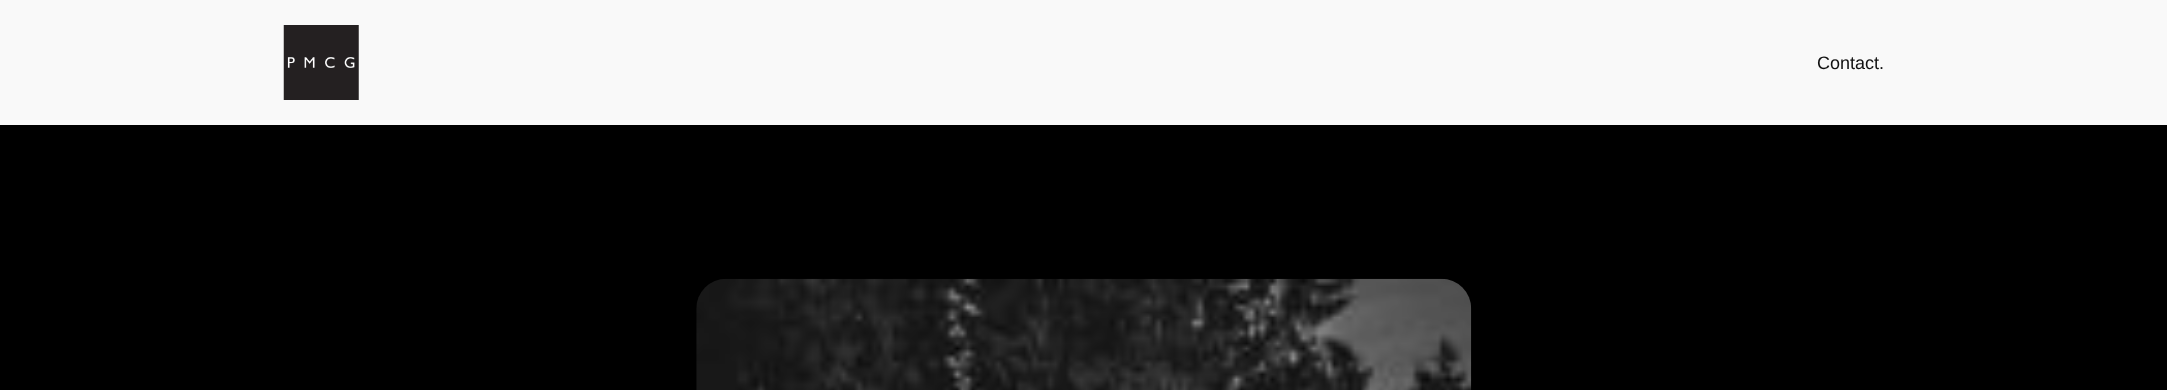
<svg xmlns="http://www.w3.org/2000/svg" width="2167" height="390">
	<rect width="100%" height="100%" fill="#000000" />
	<rect x="0" y="0" width="2167" height="125" fill="#F9F9F9" />
	<image x="283" y="25" width="76" height="75" href="assets/img1.png" />
	<text x="1817" y="69" font-family="Liberation Sans" font-size="18" fill="#111111">Contact.</text>
	<image x="696" y="278" width="776" height="112" href="assets/img2.png" />
</svg>
